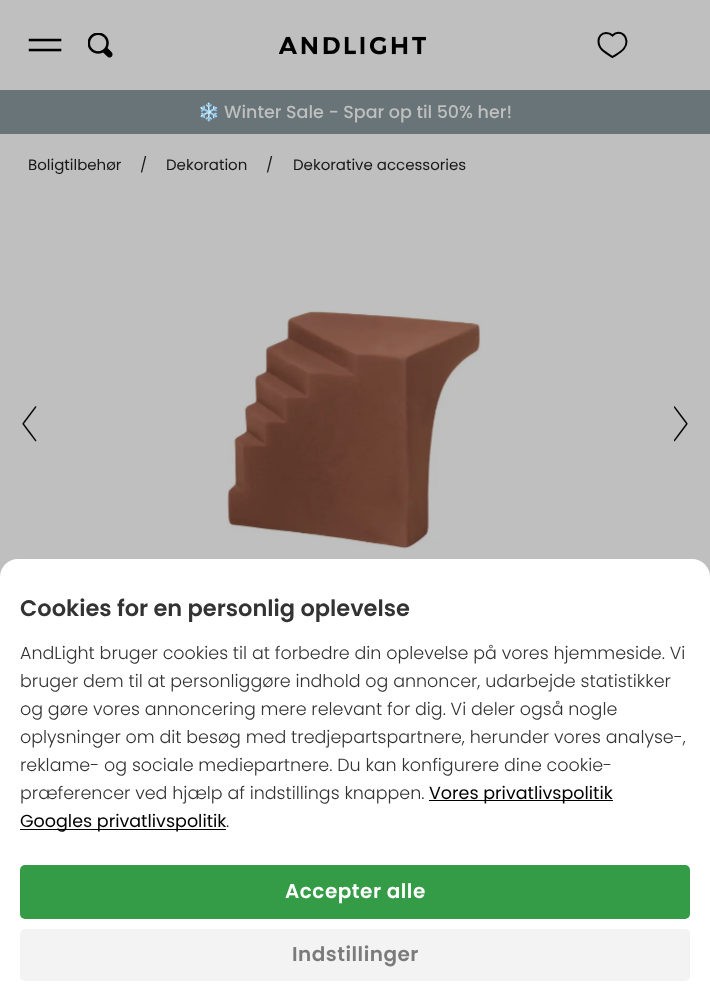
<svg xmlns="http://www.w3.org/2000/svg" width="710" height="1001">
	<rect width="100%" height="100%" fill="#BFBFBF" />
	<image x="28" y="38" width="34" height="14" href="assets/img1.png" />
	<image x="88" y="33" width="25" height="25" href="assets/img2.png" />
	<image x="279" y="36" width="147" height="19" href="assets/img3.png" />
	<path d="M606 33C601.5 33 598.5 36.5 598.5 41C598.5 49 604.5 52 612.5 57C616.5 54.5 621.5 52 624 48.5C631.5 38.5 620.5 27.5 612.5 35.5C611.5 34.5 609 33 606 33Z" fill="none" stroke="#000000" stroke-width="2" />
	<rect x="0" y="90" width="710" height="44" fill="#687477" />
	<text x="198" y="118" font-family="Noto Color Emoji" font-size="17.5" fill="#BFBFBF">❄️</text>
	<text x="224" y="118" font-family="Poppins" font-size="17.5" font-weight="500" fill="#BFBFBF">Winter Sale - Spar op til 50% her!</text>
	<g font-family="Poppins" font-size="15" fill="#181818">
		<text x="28" y="170">Boligtilbehør</text>
		<text x="140" y="170">/</text>
		<text x="166" y="170">Dekoration</text>
		<text x="266" y="170">/</text>
		<text x="293" y="170">Dekorative accessories</text>
	</g>
	<image x="22" y="406" width="15" height="36" href="assets/img4.png" />
	<image x="227" y="310" width="255" height="239" href="assets/img5.png" />
	<image x="674" y="406" width="14" height="36" href="assets/img6.png" />
	<path d="M18 559H692C702 559 710 567 710 577V1001H0V577C0 567 8 559 18 559Z" fill="#FFFFFF" />
	<text x="20" y="616" font-family="Poppins" font-size="22.5" font-weight="600" fill="#333333">Cookies for en personlig oplevelse</text>
	<g font-family="Poppins" font-size="17.5" font-weight="300" fill="#333333">
		<text x="20" y="659">AndLight bruger cookies til at forbedre din oplevelse på vores hjemmeside. Vi</text>
		<text x="20" y="687">bruger dem til at personliggøre indhold og annoncer, udarbejde statistikker</text>
		<text x="20" y="715">og gøre vores annoncering mere relevant for dig. Vi deler også nogle</text>
		<text x="20" y="743">oplysninger om dit besøg med tredjepartspartnere, herunder vores analyse-,</text>
		<text x="20" y="771">reklame- og sociale mediepartnere. Du kan konfigurere dine cookie-</text>
		<text x="20" y="799">præferencer ved hjælp af indstillings knappen.</text>
	</g>
	<rect x="429" y="800" width="184" height="1" fill="#000000" />
	<text x="429" y="799" font-family="Poppins" font-size="17.5" fill="#000000">Vores privatlivspolitik</text>
	<rect x="20" y="829" width="206" height="1" fill="#000000" />
	<text x="20" y="827" font-family="Poppins" font-size="17.5" fill="#000000">Googles privatlivspolitik</text>
	<text x="226" y="827" font-family="Poppins" font-size="17.5" font-weight="300" fill="#333333">.</text>
	<rect x="20" y="865" width="670" height="54" rx="5" fill="#349B46" />
	<text x="285" y="898" font-family="Poppins" font-size="20" font-weight="600" letter-spacing="0.5" fill="#FFFFFF">Accepter alle</text>
	<rect x="20" y="929" width="670" height="52" rx="5" fill="#F3F3F3" />
	<text x="292" y="961" font-family="Poppins" font-size="20" font-weight="600" letter-spacing="0.5" fill="#7C7B7B">Indstillinger</text>
</svg>
